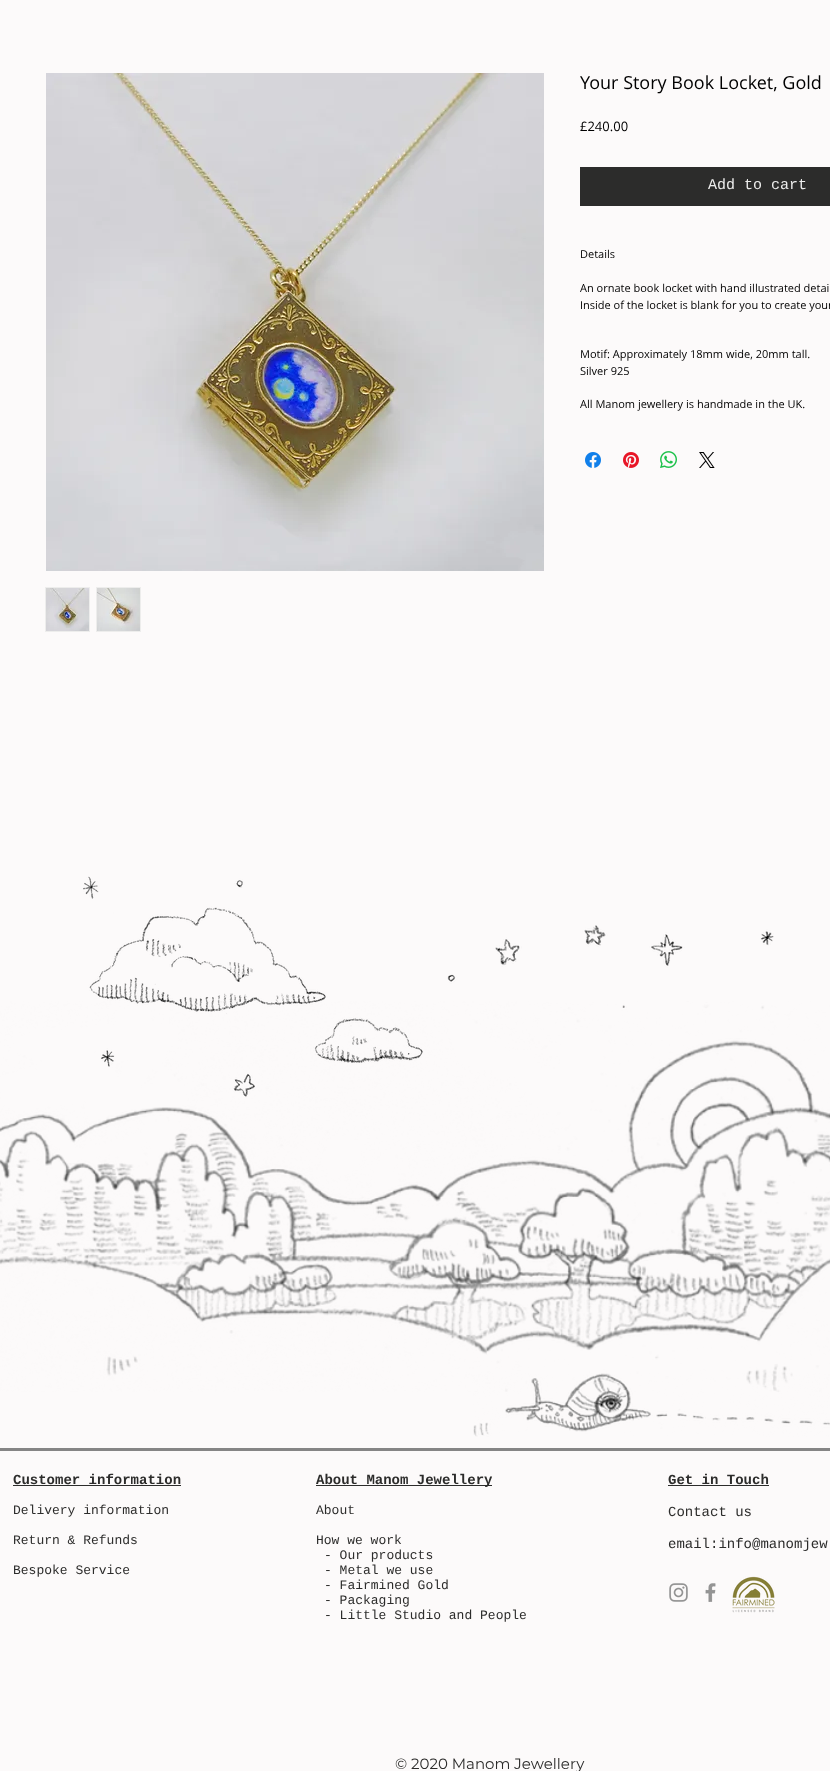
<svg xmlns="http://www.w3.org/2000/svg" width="830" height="1771">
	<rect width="100%" height="100%" fill="#FCFAFA" />
	<image x="46" y="73" width="498" height="498" href="assets/img1.png" />
	<rect x="45" y="587" width="45" height="45" fill="#EDEDEC" />
	<image x="46" y="588" width="43" height="43" href="assets/img2.png" />
	<rect x="96" y="587" width="45" height="45" fill="#EDEDEC" />
	<image x="97" y="588" width="43" height="43" href="assets/img3.png" />
	<text x="580" y="89" font-family="Open Sans" font-size="18" fill="#000000">Your Story Book Locket, Gold</text>
	<text x="580" y="131" font-family="Open Sans" font-size="13" fill="#000000">£240.00</text>
	<rect x="580" y="167" width="250" height="39" fill="#2C2C2B" />
	<text x="708" y="189" font-family="Liberation Mono" font-size="15" fill="#EDEDEC">Add to cart</text>
	<g font-family="Open Sans" font-size="11" fill="#000000">
		<text x="580" y="258">Details</text>
		<text x="580" y="292">An ornate book locket with hand illustrated detai</text>
		<text x="580" y="309">Inside of the locket is blank for you to create your</text>
		<text x="580" y="358">Motif: Approximately 18mm wide, 20mm tall.</text>
		<text x="580" y="375">Silver 925</text>
		<text x="580" y="408">All Manom jewellery is handmade in the UK.</text>
	</g>
	<image x="585" y="452" width="16" height="16" href="assets/img4.png" />
	<image x="623" y="452" width="16" height="16" href="assets/img5.png" />
	<image x="660" y="451" width="17" height="17" href="assets/img6.png" />
	<image x="699" y="452" width="16" height="16" href="assets/img7.png" />
	<image x="0" y="1001" width="830" height="391" href="assets/img10.png" />
	<image x="83" y="876" width="340" height="221" href="assets/img8.png" />
	<image x="447" y="925" width="327" height="83" href="assets/img9.png" />
	<image x="473" y="1373" width="357" height="64" href="assets/img11.png" />
	<rect x="0" y="1448" width="830" height="3" fill="#858585" />
	<text x="13" y="1484" font-family="Liberation Mono" font-size="14" font-weight="700" fill="#2C2C2B">Customer information</text>
	<rect x="13" y="1485" width="168" height="1" fill="#2C2C2B" />
	<g font-family="Liberation Mono" font-size="13" fill="#2C2C2B">
		<text x="13" y="1514">Delivery information</text>
		<text x="13" y="1544">Return &amp; Refunds</text>
		<text x="13" y="1574">Bespoke Service</text>
	</g>
	<rect x="316" y="1485" width="176" height="1" fill="#2C2C2B" />
	<text x="316" y="1484" font-family="Liberation Mono" font-size="14" font-weight="700" fill="#2C2C2B">About Manom Jewellery</text>
	<g font-family="Liberation Mono" font-size="13" fill="#2C2C2B">
		<text x="316" y="1514">About</text>
		<text x="316" y="1544">How we work</text>
		<text x="324" y="1559">- Our products</text>
		<text x="324" y="1574">- Metal we use</text>
		<text x="324" y="1589">- Fairmined Gold</text>
		<text x="324" y="1604">- Packaging</text>
		<text x="324" y="1619">- Little Studio and People</text>
	</g>
	<text x="668" y="1484" font-family="Liberation Mono" font-size="14" font-weight="700" fill="#2C2C2B">Get in Touch</text>
	<rect x="668" y="1485" width="101" height="1" fill="#2C2C2B" />
	<g font-family="Liberation Mono" font-size="14" fill="#2C2C2B">
		<text x="668" y="1516">Contact us</text>
		<text x="668" y="1548">email:info@manomjew</text>
	</g>
	<image x="669" y="1583" width="19" height="19" href="assets/img12.png" />
	<image x="705" y="1583" width="11" height="19" href="assets/img13.png" />
	<image x="732" y="1576" width="43" height="37" href="assets/img14.png" />
	<text x="395" y="1769" font-family="Montserrat" font-size="15" fill="#2C2C2B">© 2020 Manom Jewellery</text>
</svg>
